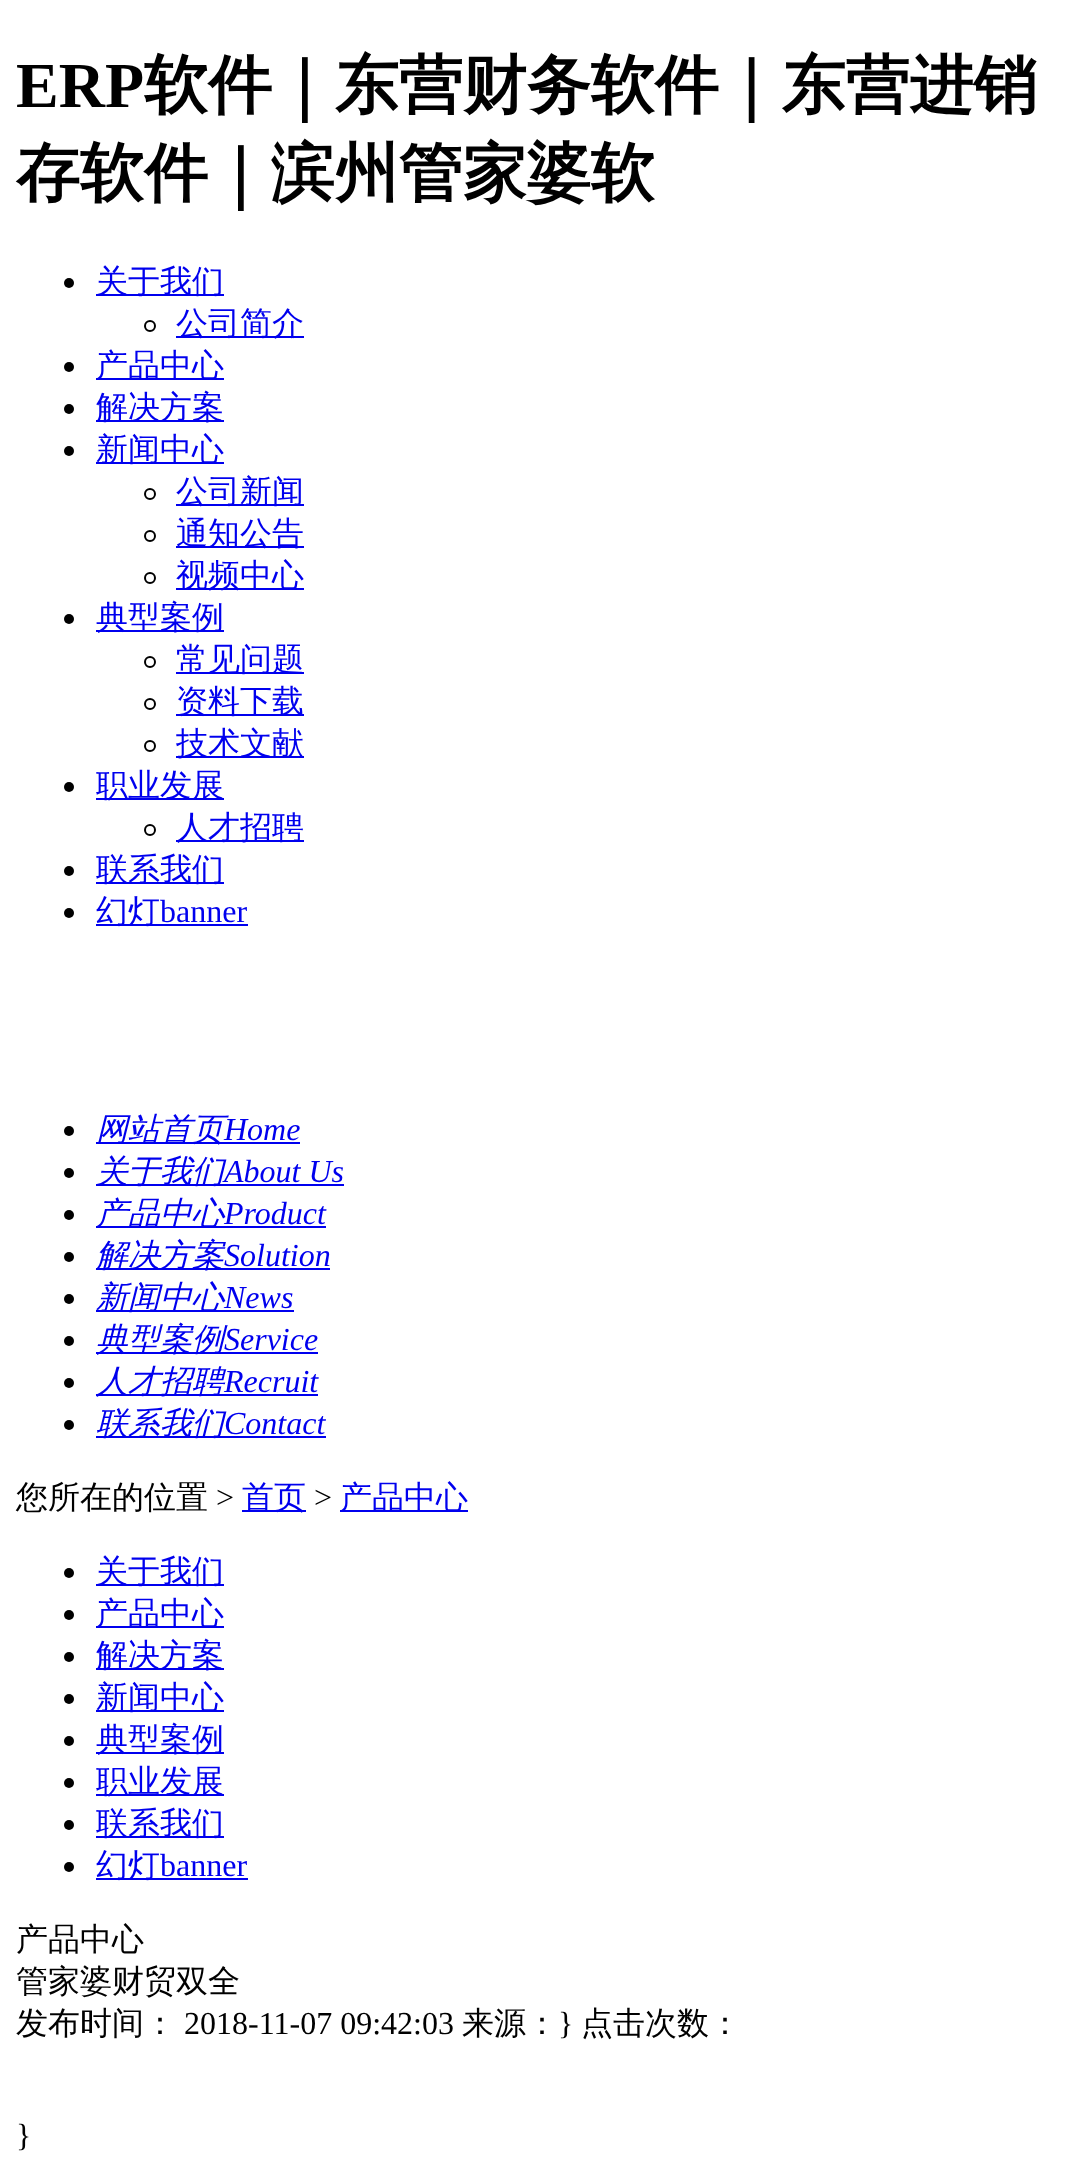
<svg xmlns="http://www.w3.org/2000/svg" width="1079" height="2159">
	<rect width="100%" height="100%" fill="#FFFFFF" />
	<text x="16" y="107" font-family="Liberation Serif" font-size="64" font-weight="700" fill="#000000">ERP</text>
	<g font-family="WenQuanYi Zen Hei" font-size="64" font-weight="700" fill="#000000">
		<text x="144" y="107">软件｜东营财务软件｜东营进销</text>
		<text x="16" y="195">存软件｜滨州管家婆软</text>
	</g>
	<circle cx="69" cy="283" r="5" fill="#000000" />
	<rect x="96" y="294" width="128" height="2" fill="#0000EE" />
	<text x="96" y="292" font-family="WenQuanYi Zen Hei" font-size="32" font-weight="500" fill="#0000EE">关于我们</text>
	<circle cx="150" cy="326" r="5" fill="none" stroke="#000000" stroke-width="2" />
	<rect x="176" y="336" width="128" height="2" fill="#0000EE" />
	<text x="176" y="334" font-family="WenQuanYi Zen Hei" font-size="32" font-weight="500" fill="#0000EE">公司简介</text>
	<circle cx="69" cy="367" r="5" fill="#000000" />
	<rect x="96" y="378" width="128" height="2" fill="#0000EE" />
	<text x="96" y="376" font-family="WenQuanYi Zen Hei" font-size="32" font-weight="500" fill="#0000EE">产品中心</text>
	<circle cx="69" cy="409" r="5" fill="#000000" />
	<rect x="96" y="420" width="128" height="2" fill="#0000EE" />
	<text x="96" y="418" font-family="WenQuanYi Zen Hei" font-size="32" font-weight="500" fill="#0000EE">解决方案</text>
	<circle cx="69" cy="451" r="5" fill="#000000" />
	<rect x="96" y="462" width="128" height="2" fill="#0000EE" />
	<text x="96" y="460" font-family="WenQuanYi Zen Hei" font-size="32" font-weight="500" fill="#0000EE">新闻中心</text>
	<circle cx="150" cy="494" r="5" fill="none" stroke="#000000" stroke-width="2" />
	<rect x="176" y="504" width="128" height="2" fill="#0000EE" />
	<text x="176" y="502" font-family="WenQuanYi Zen Hei" font-size="32" font-weight="500" fill="#0000EE">公司新闻</text>
	<circle cx="150" cy="536" r="5" fill="none" stroke="#000000" stroke-width="2" />
	<rect x="176" y="546" width="128" height="2" fill="#0000EE" />
	<text x="176" y="544" font-family="WenQuanYi Zen Hei" font-size="32" font-weight="500" fill="#0000EE">通知公告</text>
	<circle cx="150" cy="578" r="5" fill="none" stroke="#000000" stroke-width="2" />
	<rect x="176" y="588" width="128" height="2" fill="#0000EE" />
	<text x="176" y="586" font-family="WenQuanYi Zen Hei" font-size="32" font-weight="500" fill="#0000EE">视频中心</text>
	<circle cx="69" cy="619" r="5" fill="#000000" />
	<rect x="96" y="630" width="128" height="2" fill="#0000EE" />
	<text x="96" y="628" font-family="WenQuanYi Zen Hei" font-size="32" font-weight="500" fill="#0000EE">典型案例</text>
	<circle cx="150" cy="662" r="5" fill="none" stroke="#000000" stroke-width="2" />
	<rect x="176" y="672" width="128" height="2" fill="#0000EE" />
	<text x="176" y="670" font-family="WenQuanYi Zen Hei" font-size="32" font-weight="500" fill="#0000EE">常见问题</text>
	<circle cx="150" cy="704" r="5" fill="none" stroke="#000000" stroke-width="2" />
	<rect x="176" y="714" width="128" height="2" fill="#0000EE" />
	<text x="176" y="712" font-family="WenQuanYi Zen Hei" font-size="32" font-weight="500" fill="#0000EE">资料下载</text>
	<circle cx="150" cy="746" r="5" fill="none" stroke="#000000" stroke-width="2" />
	<rect x="176" y="756" width="128" height="2" fill="#0000EE" />
	<text x="176" y="754" font-family="WenQuanYi Zen Hei" font-size="32" font-weight="500" fill="#0000EE">技术文献</text>
	<circle cx="69" cy="787" r="5" fill="#000000" />
	<rect x="96" y="798" width="128" height="2" fill="#0000EE" />
	<text x="96" y="796" font-family="WenQuanYi Zen Hei" font-size="32" font-weight="500" fill="#0000EE">职业发展</text>
	<circle cx="150" cy="830" r="5" fill="none" stroke="#000000" stroke-width="2" />
	<rect x="176" y="840" width="128" height="2" fill="#0000EE" />
	<text x="176" y="838" font-family="WenQuanYi Zen Hei" font-size="32" font-weight="500" fill="#0000EE">人才招聘</text>
	<circle cx="69" cy="871" r="5" fill="#000000" />
	<rect x="96" y="882" width="128" height="2" fill="#0000EE" />
	<text x="96" y="880" font-family="WenQuanYi Zen Hei" font-size="32" font-weight="500" fill="#0000EE">联系我们</text>
	<circle cx="69" cy="913" r="5" fill="#000000" />
	<rect x="96" y="924" width="152" height="2" fill="#0000EE" />
	<text x="96" y="922" font-family="WenQuanYi Zen Hei" font-size="32" font-weight="500" fill="#0000EE">幻灯</text>
	<text x="160" y="922" font-family="Liberation Serif" font-size="32" fill="#0000EE">banner</text>
	<circle cx="69" cy="1131" r="5" fill="#000000" />
	<rect x="96" y="1142" width="128" height="2" fill="#0000EE" />
	<text x="96" y="1140" font-family="WenQuanYi Zen Hei" font-size="32" font-weight="500" font-style="italic" fill="#0000EE">网站首页</text>
	<text x="224" y="1140" font-family="Liberation Serif" font-size="32" font-style="italic" fill="#0000EE">Home</text>
	<rect x="224" y="1142" width="76" height="2" fill="#0000EE" />
	<circle cx="69" cy="1173" r="5" fill="#000000" />
	<rect x="96" y="1184" width="128" height="2" fill="#0000EE" />
	<text x="96" y="1182" font-family="WenQuanYi Zen Hei" font-size="32" font-weight="500" font-style="italic" fill="#0000EE">关于我们</text>
	<rect x="224" y="1184" width="120" height="2" fill="#0000EE" />
	<text x="224" y="1182" font-family="Liberation Serif" font-size="32" font-style="italic" fill="#0000EE">About Us</text>
	<circle cx="69" cy="1215" r="5" fill="#000000" />
	<rect x="96" y="1226" width="128" height="2" fill="#0000EE" />
	<text x="96" y="1224" font-family="WenQuanYi Zen Hei" font-size="32" font-weight="500" font-style="italic" fill="#0000EE">产品中心</text>
	<text x="224" y="1224" font-family="Liberation Serif" font-size="32" font-style="italic" fill="#0000EE">Product</text>
	<rect x="224" y="1226" width="102" height="2" fill="#0000EE" />
	<circle cx="69" cy="1257" r="5" fill="#000000" />
	<rect x="96" y="1268" width="128" height="2" fill="#0000EE" />
	<text x="96" y="1266" font-family="WenQuanYi Zen Hei" font-size="32" font-weight="500" font-style="italic" fill="#0000EE">解决方案</text>
	<text x="224" y="1266" font-family="Liberation Serif" font-size="32" font-style="italic" fill="#0000EE">Solution</text>
	<rect x="224" y="1268" width="106" height="2" fill="#0000EE" />
	<circle cx="69" cy="1299" r="5" fill="#000000" />
	<rect x="96" y="1310" width="128" height="2" fill="#0000EE" />
	<text x="96" y="1308" font-family="WenQuanYi Zen Hei" font-size="32" font-weight="500" font-style="italic" fill="#0000EE">新闻中心</text>
	<text x="224" y="1308" font-family="Liberation Serif" font-size="32" font-style="italic" fill="#0000EE">News</text>
	<rect x="224" y="1310" width="70" height="2" fill="#0000EE" />
	<circle cx="69" cy="1341" r="5" fill="#000000" />
	<rect x="96" y="1352" width="128" height="2" fill="#0000EE" />
	<text x="96" y="1350" font-family="WenQuanYi Zen Hei" font-size="32" font-weight="500" font-style="italic" fill="#0000EE">典型案例</text>
	<text x="224" y="1350" font-family="Liberation Serif" font-size="32" font-style="italic" fill="#0000EE">Service</text>
	<rect x="224" y="1352" width="94" height="2" fill="#0000EE" />
	<circle cx="69" cy="1383" r="5" fill="#000000" />
	<rect x="96" y="1394" width="128" height="2" fill="#0000EE" />
	<text x="96" y="1392" font-family="WenQuanYi Zen Hei" font-size="32" font-weight="500" font-style="italic" fill="#0000EE">人才招聘</text>
	<text x="224" y="1392" font-family="Liberation Serif" font-size="32" font-style="italic" fill="#0000EE">Recruit</text>
	<rect x="224" y="1394" width="94" height="2" fill="#0000EE" />
	<circle cx="69" cy="1425" r="5" fill="#000000" />
	<rect x="96" y="1436" width="128" height="2" fill="#0000EE" />
	<text x="96" y="1434" font-family="WenQuanYi Zen Hei" font-size="32" font-weight="500" font-style="italic" fill="#0000EE">联系我们</text>
	<text x="224" y="1434" font-family="Liberation Serif" font-size="32" font-style="italic" fill="#0000EE">Contact</text>
	<rect x="224" y="1436" width="102" height="2" fill="#0000EE" />
	<text x="16" y="1508" font-family="WenQuanYi Zen Hei" font-size="32" font-weight="500" fill="#000000">您所在的位置</text>
	<text x="216" y="1508" font-family="Liberation Serif" font-size="32" fill="#000000">&gt;</text>
	<rect x="242" y="1510" width="64" height="2" fill="#0000EE" />
	<text x="242" y="1508" font-family="WenQuanYi Zen Hei" font-size="32" font-weight="500" fill="#0000EE">首页</text>
	<text x="314" y="1508" font-family="Liberation Serif" font-size="32" fill="#000000">&gt;</text>
	<rect x="340" y="1510" width="128" height="2" fill="#0000EE" />
	<text x="340" y="1508" font-family="WenQuanYi Zen Hei" font-size="32" font-weight="500" fill="#0000EE">产品中心</text>
	<circle cx="69" cy="1573" r="5" fill="#000000" />
	<rect x="96" y="1584" width="128" height="2" fill="#0000EE" />
	<text x="96" y="1582" font-family="WenQuanYi Zen Hei" font-size="32" font-weight="500" fill="#0000EE">关于我们</text>
	<circle cx="69" cy="1615" r="5" fill="#000000" />
	<rect x="96" y="1626" width="128" height="2" fill="#0000EE" />
	<text x="96" y="1624" font-family="WenQuanYi Zen Hei" font-size="32" font-weight="500" fill="#0000EE">产品中心</text>
	<circle cx="69" cy="1657" r="5" fill="#000000" />
	<rect x="96" y="1668" width="128" height="2" fill="#0000EE" />
	<text x="96" y="1666" font-family="WenQuanYi Zen Hei" font-size="32" font-weight="500" fill="#0000EE">解决方案</text>
	<circle cx="69" cy="1699" r="5" fill="#000000" />
	<rect x="96" y="1710" width="128" height="2" fill="#0000EE" />
	<text x="96" y="1708" font-family="WenQuanYi Zen Hei" font-size="32" font-weight="500" fill="#0000EE">新闻中心</text>
	<circle cx="69" cy="1741" r="5" fill="#000000" />
	<rect x="96" y="1752" width="128" height="2" fill="#0000EE" />
	<text x="96" y="1750" font-family="WenQuanYi Zen Hei" font-size="32" font-weight="500" fill="#0000EE">典型案例</text>
	<circle cx="69" cy="1783" r="5" fill="#000000" />
	<rect x="96" y="1794" width="128" height="2" fill="#0000EE" />
	<text x="96" y="1792" font-family="WenQuanYi Zen Hei" font-size="32" font-weight="500" fill="#0000EE">职业发展</text>
	<circle cx="69" cy="1825" r="5" fill="#000000" />
	<rect x="96" y="1836" width="128" height="2" fill="#0000EE" />
	<text x="96" y="1834" font-family="WenQuanYi Zen Hei" font-size="32" font-weight="500" fill="#0000EE">联系我们</text>
	<circle cx="69" cy="1867" r="5" fill="#000000" />
	<rect x="96" y="1878" width="152" height="2" fill="#0000EE" />
	<text x="96" y="1876" font-family="WenQuanYi Zen Hei" font-size="32" font-weight="500" fill="#0000EE">幻灯</text>
	<text x="160" y="1876" font-family="Liberation Serif" font-size="32" fill="#0000EE">banner</text>
	<g font-family="WenQuanYi Zen Hei" font-size="32" font-weight="500" fill="#000000">
		<text x="16" y="1950">产品中心</text>
		<text x="16" y="1992">管家婆财贸双全</text>
		<text x="16" y="2034">发布时间：</text>
	</g>
	<text x="184" y="2034" font-family="Liberation Serif" font-size="32" fill="#000000">2018-11-07 09:42:03</text>
	<text x="462" y="2034" font-family="WenQuanYi Zen Hei" font-size="32" font-weight="500" fill="#000000">来源：</text>
	<text x="558" y="2034" font-family="Liberation Serif" font-size="32" fill="#000000">}</text>
	<text x="581" y="2034" font-family="WenQuanYi Zen Hei" font-size="32" font-weight="500" fill="#000000">点击次数：</text>
	<text x="16" y="2146" font-family="Liberation Serif" font-size="32" fill="#000000">}</text>
</svg>
